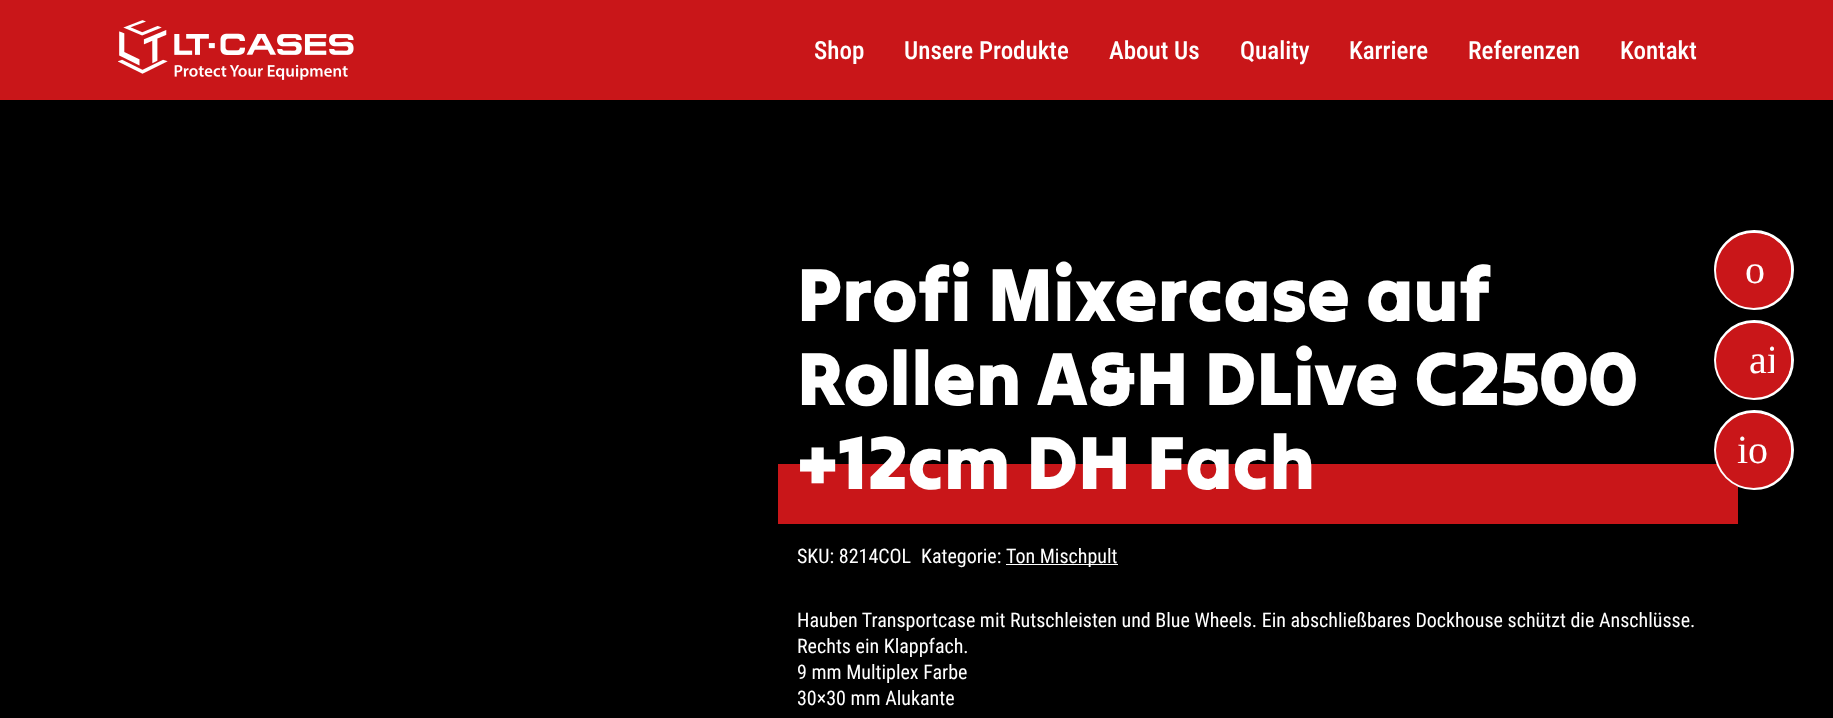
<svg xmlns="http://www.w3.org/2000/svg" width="1833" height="718">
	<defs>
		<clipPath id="clip1"><rect x="1734" y="340" width="40" height="40" /></clipPath>
	</defs>
	<rect width="100%" height="100%" fill="#000000" />
	<rect x="0" y="0" width="1833" height="100" fill="#C91619" />
	<image x="118" y="20" width="236" height="60" href="assets/img1.png" />
	<g font-family="Roboto Condensed" font-size="25" font-weight="500" fill="#FFFFFF">
		<text x="814" y="59">Shop</text>
		<text x="904" y="59">Unsere Produkte</text>
		<text x="1109" y="59">About Us</text>
		<text x="1240" y="59">Quality</text>
		<text x="1349" y="59">Karriere</text>
		<text x="1468" y="59">Referenzen</text>
		<text x="1620" y="59">Kontakt</text>
	</g>
	<circle cx="1754" cy="270" r="38.5" fill="#C91619" stroke="#FFFFFF" stroke-width="3" />
	<circle cx="1753.5" cy="270.5" r="37.5" fill="#C91619" />
	<text x="1745" y="283" font-family="Liberation Serif" font-size="40" fill="#FFFFFF">o</text>
	<circle cx="1754" cy="360" r="38.5" fill="#C91619" stroke="#FFFFFF" stroke-width="3" />
	<circle cx="1753.5" cy="360.5" r="37.5" fill="#C91619" />
	<g clip-path="url(#clip1)">
		<text x="1749" y="373" font-family="Liberation Serif" font-size="40" fill="#FFFFFF">ai</text>
	</g>
	<rect x="778" y="464" width="960" height="60" fill="#C91619" />
	<circle cx="1754" cy="450" r="38.5" fill="#C91619" stroke="#FFFFFF" stroke-width="3" />
	<circle cx="1753.5" cy="450.5" r="37.5" fill="#C91619" />
	<text x="1737" y="463" font-family="Liberation Serif" font-size="40" fill="#FFFFFF">io</text>
	<g font-family="Tilt Warp" font-size="76.25" fill="#FFFFFF">
		<text x="797" y="321">Profi Mixercase auf</text>
		<text x="797" y="405">Rollen A&amp;H DLive C2500</text>
		<text x="797" y="489">+12cm DH Fach</text>
	</g>
	<g font-family="Roboto Condensed" font-size="20" fill="#FFFFFF">
		<text x="797" y="563">SKU: 8214COL</text>
		<text x="921" y="563">Kategorie:</text>
	</g>
	<rect x="1006" y="564" width="112" height="1" fill="#FFFFFF" />
	<g font-family="Roboto Condensed" font-size="20" fill="#FFFFFF">
		<text x="1006" y="563">Ton Mischpult</text>
		<text x="797" y="627">Hauben Transportcase mit Rutschleisten und Blue Wheels. Ein abschließbares Dockhouse schützt die Anschlüsse.</text>
		<text x="797" y="653">Rechts ein Klappfach.</text>
		<text x="797" y="679">9 mm Multiplex Farbe</text>
		<text x="797" y="705">30×30 mm Alukante</text>
	</g>
</svg>
